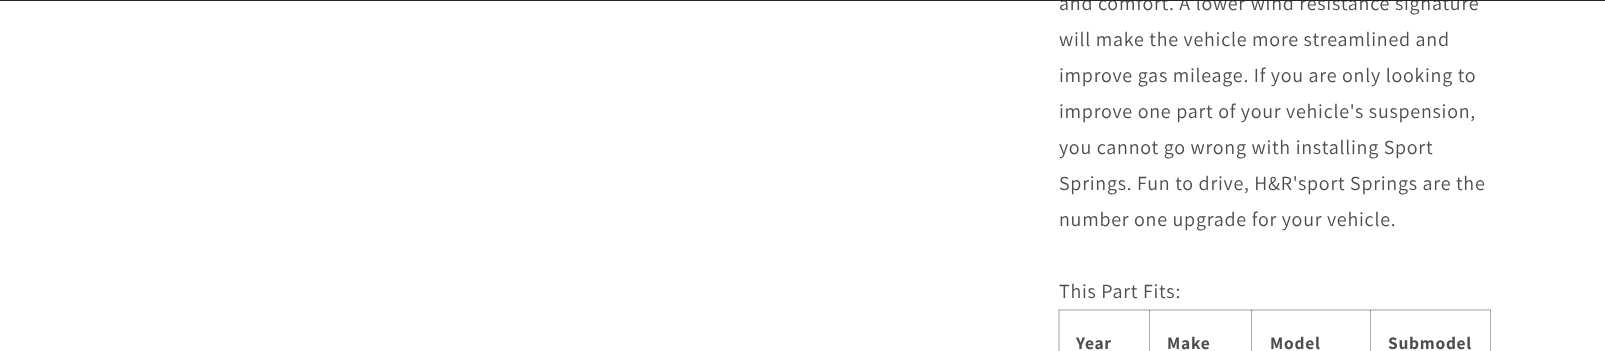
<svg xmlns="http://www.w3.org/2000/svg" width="1605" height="351">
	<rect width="100%" height="100%" fill="#FFFFFF" />
	<text x="1059" y="10" font-family="Assistant" font-size="20" letter-spacing="0.75" fill="#4D4D4D">and comfort. A lower wind resistance signature</text>
	<rect x="0" y="0" width="1605" height="1" fill="#252525" />
	<g font-family="Assistant" font-size="20" letter-spacing="0.75" fill="#4D4D4D">
		<text x="1059" y="46">will make the vehicle more streamlined and</text>
		<text x="1059" y="82">improve gas mileage. If you are only looking to</text>
		<text x="1059" y="118">improve one part of your vehicle's suspension,</text>
		<text x="1059" y="154">you cannot go wrong with installing Sport</text>
		<text x="1059" y="190">Springs. Fun to drive, H&amp;R'sport Springs are the</text>
		<text x="1059" y="226">number one upgrade for your vehicle.</text>
		<text x="1059" y="298">This Part Fits:</text>
	</g>
	<rect x="1058.5" y="309.5" width="432" height="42" fill="none" stroke="#D0D0D0" />
	<rect x="1370" y="310" width="121" height="1" fill="#121212" fill-opacity="0.2" />
	<rect x="1370" y="310" width="1" height="41" fill="#121212" fill-opacity="0.2" />
	<rect x="1251" y="310" width="120" height="1" fill="#121212" fill-opacity="0.2" />
	<rect x="1251" y="310" width="1" height="41" fill="#121212" fill-opacity="0.2" />
	<rect x="1149" y="310" width="104" height="1" fill="#121212" fill-opacity="0.2" />
	<rect x="1149" y="310" width="1" height="41" fill="#121212" fill-opacity="0.2" />
	<rect x="1059" y="310" width="91" height="1" fill="#121212" fill-opacity="0.2" />
	<rect x="1149" y="310" width="1" height="41" fill="#121212" fill-opacity="0.2" />
	<rect x="1059" y="310" width="1" height="41" fill="#121212" fill-opacity="0.2" />
	<text x="1076" y="349" font-family="Assistant" font-size="17.5" font-weight="700" letter-spacing="0.75" fill="#4D4D4D">Year</text>
	<rect x="1251" y="310" width="1" height="41" fill="#121212" fill-opacity="0.2" />
	<text x="1167" y="349" font-family="Assistant" font-size="17.5" font-weight="700" letter-spacing="0.75" fill="#4D4D4D">Make</text>
	<rect x="1370" y="310" width="1" height="41" fill="#121212" fill-opacity="0.2" />
	<text x="1270" y="349" font-family="Assistant" font-size="17.5" font-weight="700" letter-spacing="0.75" fill="#4D4D4D">Model</text>
	<rect x="1490" y="310" width="1" height="41" fill="#121212" fill-opacity="0.2" />
	<text x="1388" y="349" font-family="Assistant" font-size="17.5" font-weight="700" letter-spacing="0.75" fill="#4D4D4D">Submodel</text>
</svg>
